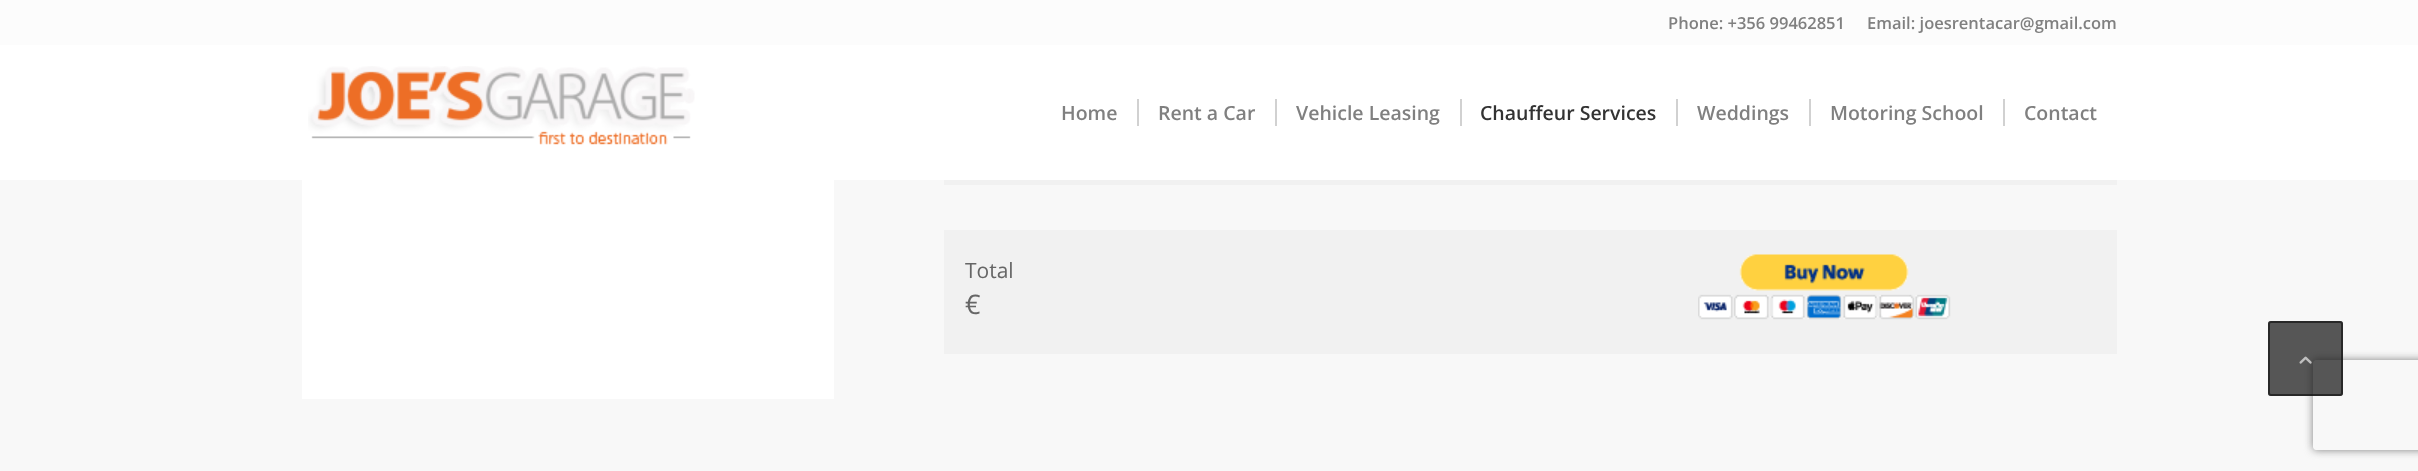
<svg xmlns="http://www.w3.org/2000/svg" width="2418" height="471">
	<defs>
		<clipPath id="clip1"><path d="M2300 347H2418V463H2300ZM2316 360H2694C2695.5 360 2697 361.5 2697 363V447C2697 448.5 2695.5 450 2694 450H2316C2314.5 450 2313 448.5 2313 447V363C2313 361.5 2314.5 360 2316 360Z" clip-rule="evenodd" /></clipPath>
	</defs>
	<rect width="100%" height="100%" fill="#F8F8F8" />
	<rect x="0" y="0" width="2418" height="45" fill="#FCFCFC" />
	<g font-family="Open Sans" font-size="16.5" font-weight="600" fill="#808080">
		<text x="1668" y="29">Phone: +356 99462851</text>
		<text x="1867" y="29">Email: joesrentacar@gmail.com</text>
	</g>
	<rect x="0" y="45" width="2418" height="135" fill="#FFFFFF" />
	<image x="308" y="66" width="387" height="79" href="assets/img1.png" />
	<g font-family="Open Sans" font-size="19.5" font-weight="600" fill="#808080">
		<text x="1061" y="120">Home</text>
		<text x="1158" y="120">Rent a Car</text>
	</g>
	<rect x="1137" y="99" width="2" height="27" fill="#D1D1D1" />
	<text x="1296" y="120" font-family="Open Sans" font-size="19.5" font-weight="600" fill="#808080">Vehicle Leasing</text>
	<rect x="1275" y="99" width="2" height="27" fill="#D1D1D1" />
	<text x="1480" y="120" font-family="Open Sans" font-size="19.5" font-weight="600" fill="#333333">Chauffeur Services</text>
	<rect x="1460" y="99" width="2" height="27" fill="#D1D1D1" />
	<text x="1697" y="120" font-family="Open Sans" font-size="19.5" font-weight="600" fill="#808080">Weddings</text>
	<rect x="1676" y="99" width="2" height="27" fill="#D1D1D1" />
	<text x="1830" y="120" font-family="Open Sans" font-size="19.5" font-weight="600" fill="#808080">Motoring School</text>
	<rect x="1809" y="99" width="2" height="27" fill="#D1D1D1" />
	<text x="2024" y="120" font-family="Open Sans" font-size="19.5" font-weight="600" fill="#808080">Contact</text>
	<rect x="2003" y="99" width="2" height="27" fill="#D1D1D1" />
	<rect x="302" y="180" width="532" height="219" fill="#FFFFFF" />
	<rect x="944" y="180" width="1173" height="5" fill="#F1F1F1" />
	<rect x="944" y="230" width="1173" height="124" fill="#F1F1F1" />
	<text x="965" y="278" font-family="Open Sans" font-size="21" fill="#666666">Total</text>
	<text x="965" y="314" font-family="Open Sans" font-size="27" fill="#666666">€</text>
	<image x="1698" y="254" width="253" height="66" href="assets/img2.png" />
	<g clip-path="url(#clip1)">
		<rect x="2313" y="360" width="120" height="90" rx="3" fill="#808080" filter="blur(4px)" />
	</g>
	<rect x="2268" y="321" width="75" height="75" rx="3" fill="#111111" fill-opacity="0.7" />
	<rect x="2269" y="322" width="73" height="73" rx="2" fill="none" stroke="#161616" stroke-opacity="0.7" stroke-width="2" />
	<image x="2299" y="356" width="13" height="8" href="assets/img3.png" />
</svg>
